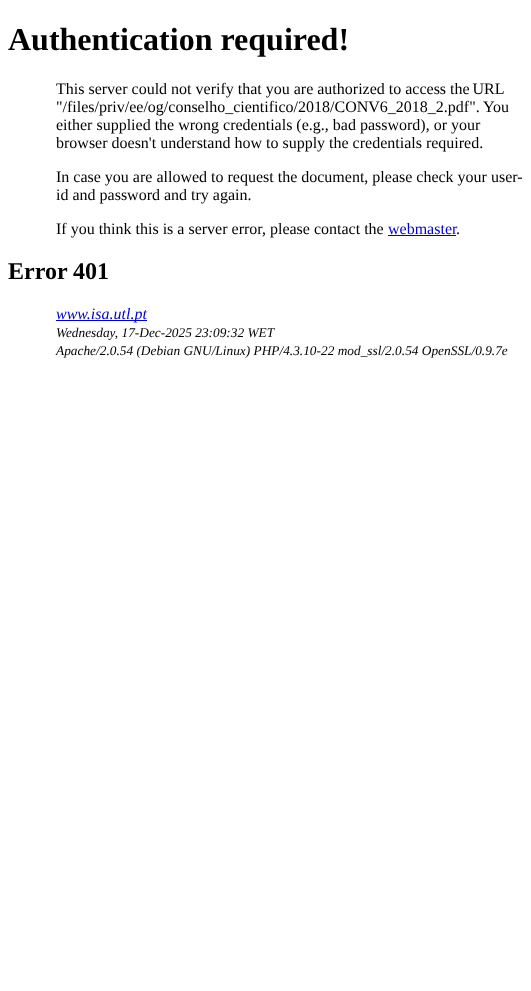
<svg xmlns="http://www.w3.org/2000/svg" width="531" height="991">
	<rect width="100%" height="100%" fill="#FFFFFF" />
	<text x="8" y="50" font-family="Liberation Serif" font-size="32" font-weight="700" fill="#000000">Authentication required!</text>
	<g font-family="Liberation Serif" font-size="16" fill="#000000">
		<text x="56" y="94">This server could not verify that you are authorized to access</text>
		<text x="450" y="94" word-spacing="-1">the URL</text>
		<text x="56" y="112">"/files/priv/ee/og/conselho_cientifico/2018/CONV6_2018_2.pdf".</text>
		<text x="483" y="112">You</text>
		<text x="56" y="130">either supplied the wrong credentials (e.g., bad password), or your</text>
		<text x="56" y="148">browser doesn't understand how to supply the credentials required.</text>
		<text x="56" y="182">In case you are allowed to request the document, please check your user-</text>
		<text x="56" y="200">id and password and try again.</text>
		<text x="56" y="234">If you think this is a server error, please contact the</text>
	</g>
	<text x="388" y="234" font-family="Liberation Serif" font-size="16" fill="#0000CC">webmaster</text>
	<rect x="388" y="235" width="68" height="1" fill="#0000CC" />
	<text x="456" y="234" font-family="Liberation Serif" font-size="16" fill="#000000">.</text>
	<text x="8" y="279" font-family="Liberation Serif" font-size="24" font-weight="700" fill="#000000">Error 401</text>
	<rect x="56" y="320" width="91" height="1" fill="#0000CC" />
	<text x="56" y="319" font-family="Liberation Serif" font-size="16" font-style="italic" fill="#0000CC">www.isa.utl.pt</text>
	<g font-family="Liberation Serif" font-size="13.35" font-style="italic" fill="#000000">
		<text x="56" y="337">Wednesday, 17-Dec-2025 23:09:32 WET</text>
		<text x="56" y="355">Apache/2.0.54 (Debian GNU/Linux) PHP/4.3.10-22 mod_ssl/2.0.54 OpenSSL/0.9.7e</text>
	</g>
</svg>
